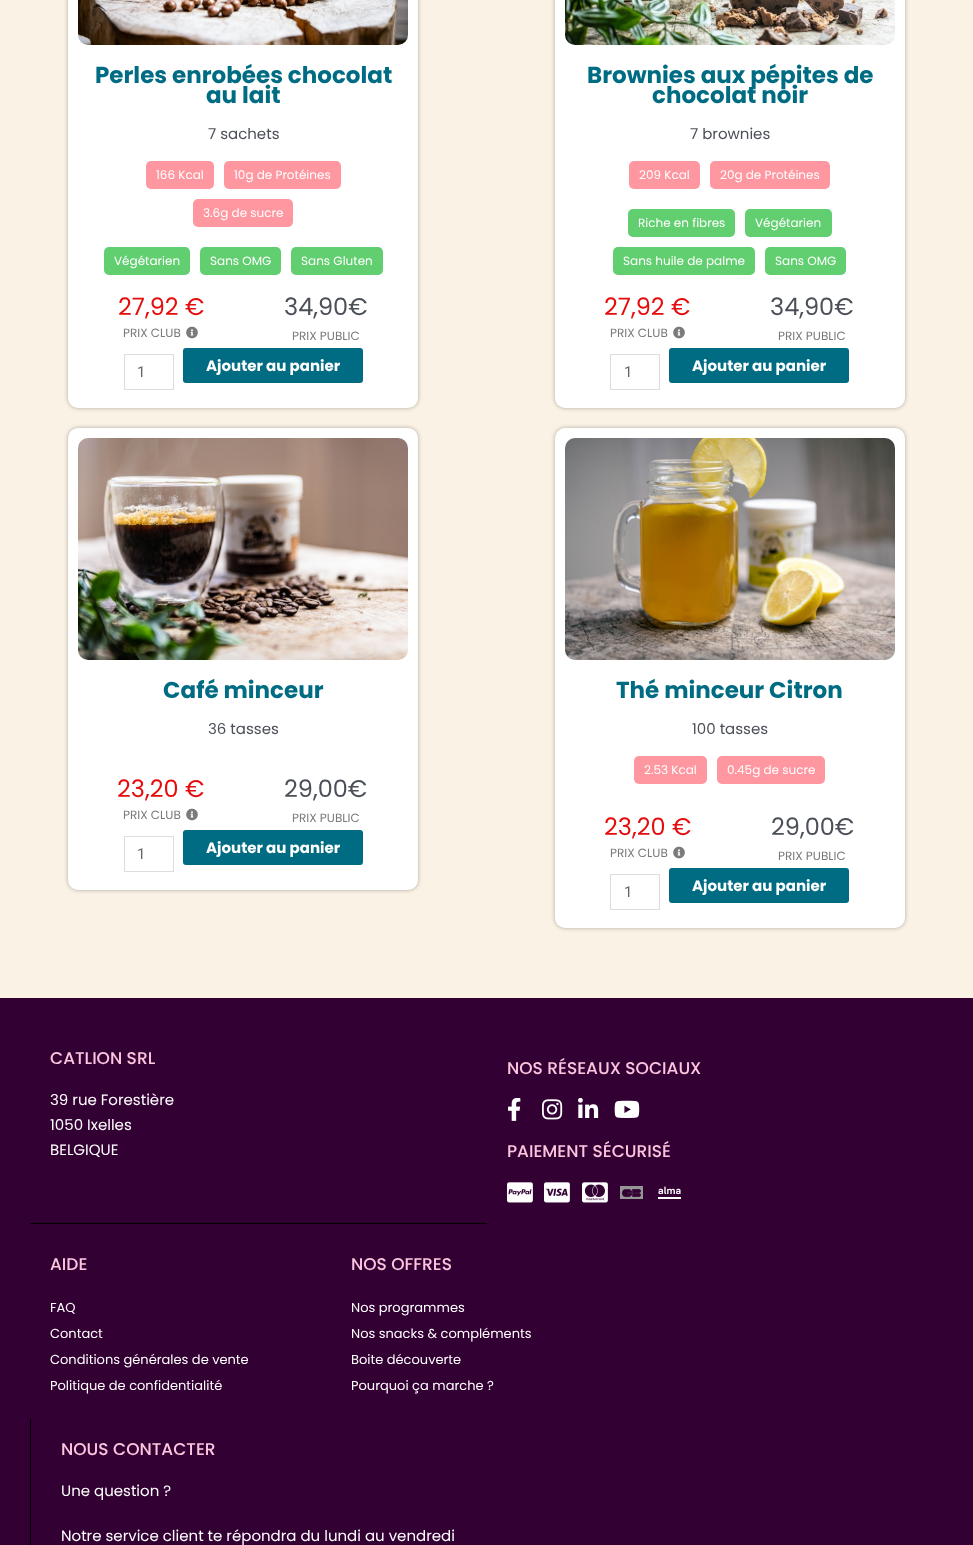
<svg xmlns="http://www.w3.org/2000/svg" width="973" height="1545">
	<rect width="100%" height="100%" fill="#FAF2E4" />
	<rect x="68" y="-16" width="350" height="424" rx="10" fill="#000000" fill-opacity="0.3" filter="blur(2px)" />
	<rect x="68" y="-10" width="350" height="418" rx="10" fill="#FFFFFF" />
	<image x="78" y="0" width="330" height="45" href="assets/img1.png" />
	<g font-family="Poppins" font-size="23" font-weight="700" fill="#006C84">
		<text x="95" y="83">Perles enrobées chocolat</text>
		<text x="206" y="103">au lait</text>
	</g>
	<text x="208" y="139" font-family="Poppins" font-size="15" fill="#4B4F58">7 sachets</text>
	<rect x="146" y="161" width="68" height="28" rx="5" fill="#FE97A0" />
	<text x="156" y="179" font-family="Poppins" font-size="12" fill="#FFFFFF">166 Kcal</text>
	<rect x="224" y="161" width="117" height="28" rx="5" fill="#FE97A0" />
	<text x="234" y="179" font-family="Poppins" font-size="12" fill="#FFFFFF">10g de Protéines</text>
	<rect x="193" y="199" width="100" height="28" rx="5" fill="#FE97A0" />
	<text x="203" y="217" font-family="Poppins" font-size="12" fill="#FFFFFF">3.6g de sucre</text>
	<rect x="104" y="247" width="86" height="28" rx="5" fill="#61CE70" />
	<text x="114" y="265" font-family="Poppins" font-size="12" fill="#FFFFFF">Végétarien</text>
	<rect x="200" y="247" width="81" height="28" rx="5" fill="#61CE70" />
	<text x="210" y="265" font-family="Poppins" font-size="12" fill="#FFFFFF">Sans OMG</text>
	<rect x="291" y="247" width="92" height="28" rx="5" fill="#61CE70" />
	<text x="301" y="265" font-family="Poppins" font-size="12" fill="#FFFFFF">Sans Gluten</text>
	<text x="118" y="315" font-family="Poppins" font-size="24" fill="#E40C0C">27,92 €</text>
	<text x="123" y="337" font-family="Poppins" font-size="12" fill="#7A7A7A">PRIX CLUB</text>
	<image x="186" y="326" width="12" height="13" href="assets/img2.png" />
	<text x="284" y="315" font-family="Poppins" font-size="24" fill="#4B4F58">34,90€</text>
	<text x="292" y="340" font-family="Poppins" font-size="12" fill="#7A7A7A">PRIX PUBLIC</text>
	<rect x="124.5" y="354.5" width="49" height="35" fill="none" stroke="#DDDDDD" />
	<text x="137" y="377" font-family="Roboto" font-size="15" fill="#666666">1</text>
	<rect x="183" y="348" width="180" height="35" rx="3" fill="#006C84" />
	<text x="206" y="371" font-family="Poppins" font-size="15" font-weight="700" fill="#FFFFFF">Ajouter au panier</text>
	<rect x="555" y="-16" width="350" height="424" rx="10" fill="#000000" fill-opacity="0.3" filter="blur(2px)" />
	<rect x="555" y="-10" width="350" height="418" rx="10" fill="#FFFFFF" />
	<image x="565" y="0" width="330" height="45" href="assets/img3.png" />
	<g font-family="Poppins" font-size="23" font-weight="700" fill="#006C84">
		<text x="587" y="83">Brownies aux pépites de</text>
		<text x="652" y="103">chocolat noir</text>
	</g>
	<text x="690" y="139" font-family="Poppins" font-size="15" fill="#4B4F58">7 brownies</text>
	<rect x="629" y="161" width="71" height="28" rx="5" fill="#FE97A0" />
	<text x="639" y="179" font-family="Poppins" font-size="12" fill="#FFFFFF">209 Kcal</text>
	<rect x="710" y="161" width="120" height="28" rx="5" fill="#FE97A0" />
	<text x="720" y="179" font-family="Poppins" font-size="12" fill="#FFFFFF">20g de Protéines</text>
	<rect x="628" y="209" width="107" height="28" rx="5" fill="#61CE70" />
	<text x="638" y="227" font-family="Poppins" font-size="12" fill="#FFFFFF">Riche en fibres</text>
	<rect x="745" y="209" width="87" height="28" rx="5" fill="#61CE70" />
	<text x="755" y="227" font-family="Poppins" font-size="12" fill="#FFFFFF">Végétarien</text>
	<rect x="613" y="247" width="142" height="28" rx="5" fill="#61CE70" />
	<text x="623" y="265" font-family="Poppins" font-size="12" fill="#FFFFFF">Sans huile de palme</text>
	<rect x="765" y="247" width="81" height="28" rx="5" fill="#61CE70" />
	<text x="775" y="265" font-family="Poppins" font-size="12" fill="#FFFFFF">Sans OMG</text>
	<text x="604" y="315" font-family="Poppins" font-size="24" fill="#E40C0C">27,92 €</text>
	<text x="610" y="337" font-family="Poppins" font-size="12" fill="#7A7A7A">PRIX CLUB</text>
	<image x="673" y="326" width="12" height="13" href="assets/img2.png" />
	<text x="770" y="315" font-family="Poppins" font-size="24" fill="#4B4F58">34,90€</text>
	<text x="778" y="340" font-family="Poppins" font-size="12" fill="#7A7A7A">PRIX PUBLIC</text>
	<rect x="610.5" y="354.5" width="49" height="35" fill="none" stroke="#DDDDDD" />
	<text x="624" y="377" font-family="Roboto" font-size="15" fill="#666666">1</text>
	<rect x="669" y="348" width="180" height="35" rx="3" fill="#006C84" />
	<text x="692" y="371" font-family="Poppins" font-size="15" font-weight="700" fill="#FFFFFF">Ajouter au panier</text>
	<rect x="68" y="428" width="350" height="462" rx="10" fill="#000000" fill-opacity="0.3" filter="blur(2px)" />
	<rect x="68" y="428" width="350" height="462" rx="10" fill="#FFFFFF" />
	<image x="78" y="438" width="330" height="222" href="assets/img4.png" />
	<text x="163" y="698" font-family="Poppins" font-size="23" font-weight="700" fill="#006C84">Café minceur</text>
	<text x="208" y="734" font-family="Poppins" font-size="15" fill="#4B4F58">36 tasses</text>
	<text x="117" y="797" font-family="Poppins" font-size="24" fill="#E40C0C">23,20 €</text>
	<text x="123" y="819" font-family="Poppins" font-size="12" fill="#7A7A7A">PRIX CLUB</text>
	<image x="186" y="808" width="12" height="13" href="assets/img2.png" />
	<text x="284" y="797" font-family="Poppins" font-size="24" fill="#4B4F58">29,00€</text>
	<text x="292" y="822" font-family="Poppins" font-size="12" fill="#7A7A7A">PRIX PUBLIC</text>
	<rect x="124.5" y="836.5" width="49" height="35" fill="none" stroke="#DDDDDD" />
	<text x="137" y="859" font-family="Roboto" font-size="15" fill="#666666">1</text>
	<rect x="183" y="830" width="180" height="35" rx="3" fill="#006C84" />
	<text x="206" y="853" font-family="Poppins" font-size="15" font-weight="700" fill="#FFFFFF">Ajouter au panier</text>
	<rect x="555" y="428" width="350" height="500" rx="10" fill="#000000" fill-opacity="0.3" filter="blur(2px)" />
	<rect x="555" y="428" width="350" height="500" rx="10" fill="#FFFFFF" />
	<image x="565" y="438" width="330" height="222" href="assets/img5.png" />
	<text x="616" y="698" font-family="Poppins" font-size="23" font-weight="700" fill="#006C84">Thé minceur Citron</text>
	<text x="692" y="734" font-family="Poppins" font-size="15" fill="#4B4F58">100 tasses</text>
	<rect x="634" y="756" width="73" height="28" rx="5" fill="#FE97A0" />
	<text x="644" y="774" font-family="Poppins" font-size="12" fill="#FFFFFF">2.53 Kcal</text>
	<rect x="717" y="756" width="108" height="28" rx="5" fill="#FE97A0" />
	<text x="727" y="774" font-family="Poppins" font-size="12" fill="#FFFFFF">0.45g de sucre</text>
	<text x="604" y="835" font-family="Poppins" font-size="24" fill="#E40C0C">23,20 €</text>
	<text x="610" y="857" font-family="Poppins" font-size="12" fill="#7A7A7A">PRIX CLUB</text>
	<image x="673" y="846" width="12" height="13" href="assets/img2.png" />
	<text x="771" y="835" font-family="Poppins" font-size="24" fill="#4B4F58">29,00€</text>
	<text x="778" y="860" font-family="Poppins" font-size="12" fill="#7A7A7A">PRIX PUBLIC</text>
	<rect x="610.5" y="874.5" width="49" height="35" fill="none" stroke="#DDDDDD" />
	<text x="624" y="897" font-family="Roboto" font-size="15" fill="#666666">1</text>
	<rect x="669" y="868" width="180" height="35" rx="3" fill="#006C84" />
	<text x="692" y="891" font-family="Poppins" font-size="15" font-weight="700" fill="#FFFFFF">Ajouter au panier</text>
	<rect x="0" y="998" width="973" height="547" fill="#330033" />
	<rect x="30" y="1223" width="457" height="1" fill="#000000" />
	<text x="50" y="1064" font-family="Poppins" font-size="17" font-weight="500" fill="#FDC6DF">CATLION SRL</text>
	<g font-family="Poppins" font-size="15" fill="#FFFFFF">
		<text x="50" y="1105">39 rue Forestière</text>
		<text x="50" y="1130">1050 Ixelles</text>
		<text x="50" y="1155">BELGIQUE</text>
	</g>
	<text x="507" y="1074" font-family="Poppins" font-size="17" font-weight="500" fill="#FDC6DF">NOS RÉSEAUX SOCIAUX</text>
	<image x="508" y="1098" width="13" height="23" href="assets/img6.png" />
	<image x="542" y="1099" width="21" height="21" href="assets/img7.png" />
	<image x="578" y="1098" width="21" height="20" href="assets/img8.png" />
	<image x="614" y="1100" width="26" height="18" href="assets/img9.png" />
	<text x="507" y="1157" font-family="Poppins" font-size="17" font-weight="500" fill="#FDC6DF">PAIEMENT SÉCURISÉ</text>
	<image x="507" y="1182" width="26" height="21" href="assets/img10.png" />
	<image x="544" y="1182" width="26" height="21" href="assets/img11.png" />
	<image x="582" y="1182" width="26" height="21" href="assets/img12.png" />
	<image x="620" y="1186" width="23" height="13" href="assets/img13.png" />
	<image x="658" y="1186" width="23" height="13" href="assets/img14.png" />
	<text x="50" y="1270" font-family="Poppins" font-size="17" font-weight="500" fill="#FDC6DF">AIDE</text>
	<g font-family="Poppins" font-size="13" fill="#FFFFFF">
		<text x="50" y="1312">FAQ</text>
		<text x="50" y="1338">Contact</text>
		<text x="50" y="1364">Conditions générales de vente</text>
		<text x="50" y="1390">Politique de confidentialité</text>
	</g>
	<text x="351" y="1270" font-family="Poppins" font-size="17" font-weight="500" fill="#FDC6DF">NOS OFFRES</text>
	<g font-family="Poppins" font-size="13" fill="#FFFFFF">
		<text x="351" y="1312">Nos programmes</text>
		<text x="351" y="1338">Nos snacks &amp; compléments</text>
		<text x="351" y="1364">Boite découverte</text>
		<text x="351" y="1390">Pourquoi ça marche ?</text>
	</g>
	<rect x="30" y="1419" width="1" height="126" fill="#000000" />
	<text x="61" y="1455" font-family="Poppins" font-size="17" font-weight="500" fill="#FDC6DF">NOUS CONTACTER</text>
	<g font-family="Poppins" font-size="15" fill="#FFFFFF">
		<text x="61" y="1496">Une question ?</text>
		<text x="61" y="1541">Notre service client te répondra du lundi au vendredi</text>
	</g>
</svg>
